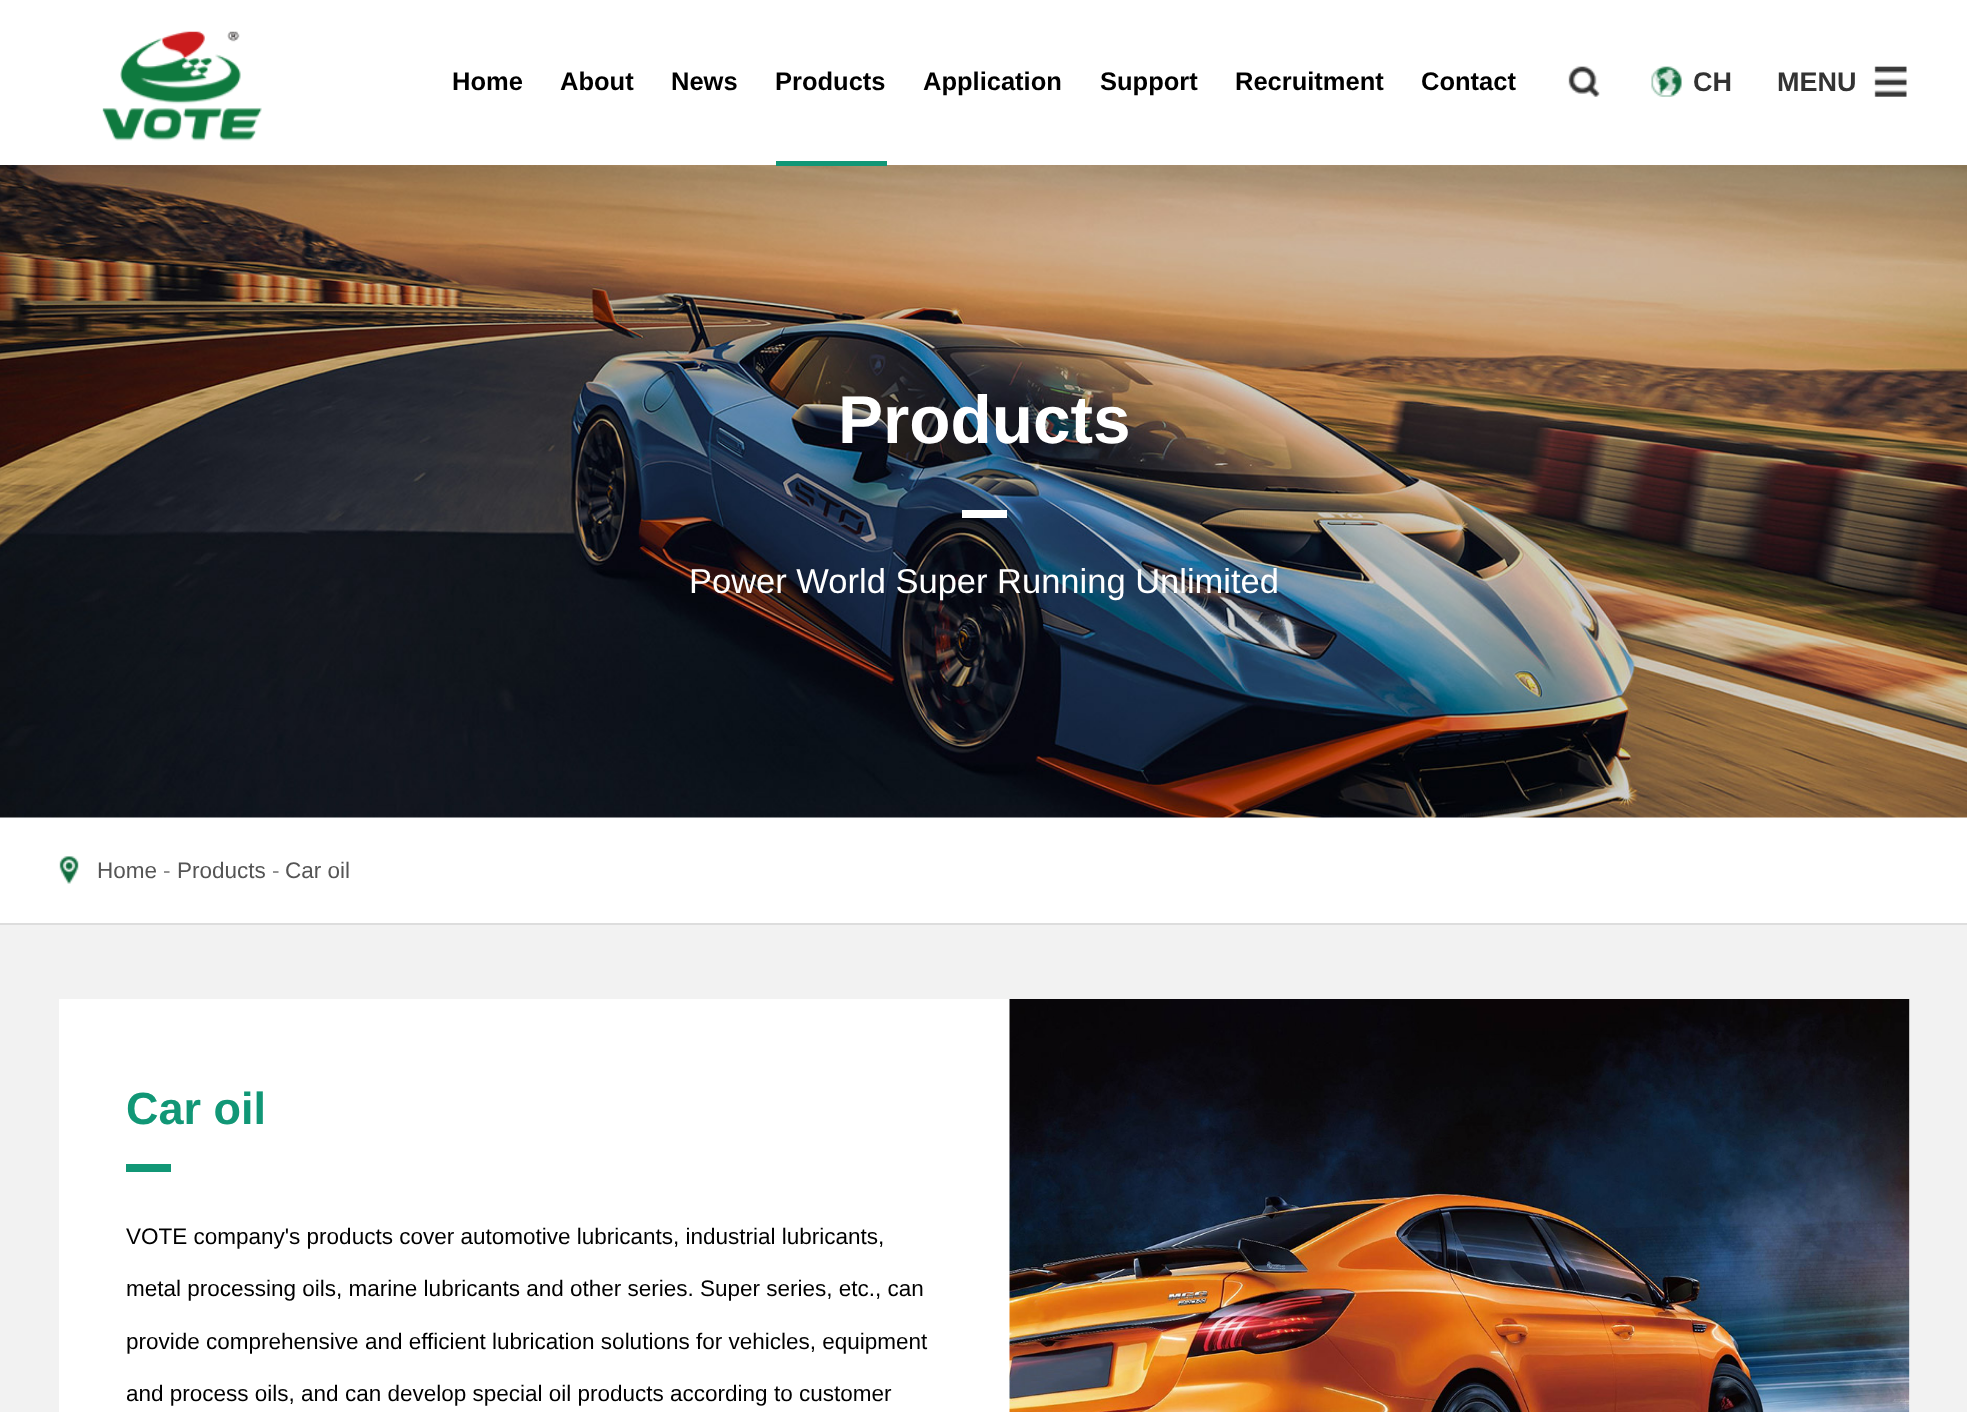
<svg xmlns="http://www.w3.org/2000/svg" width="1967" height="1412">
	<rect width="100%" height="100%" fill="#FFFFFF" />
	<image x="102" y="31" width="160" height="110" href="assets/img1.png" />
	<g font-family="Liberation Sans" font-size="25.5" font-weight="700" fill="#000000">
		<text x="452" y="90">Home</text>
		<text x="560" y="90">About</text>
		<text x="671" y="90">News</text>
		<text x="775" y="90">Products</text>
	</g>
	<image x="0" y="165" width="1967" height="653" href="assets/img5.png" />
	<rect x="776" y="161" width="111" height="5" fill="#119776" />
	<g font-family="Liberation Sans" font-size="25.5" font-weight="700" fill="#000000">
		<text x="923" y="90">Application</text>
		<text x="1100" y="90">Support</text>
		<text x="1235" y="90">Recruitment</text>
		<text x="1421" y="90">Contact</text>
	</g>
	<image x="1568" y="66" width="32" height="31" href="assets/img2.png" />
	<image x="1651" y="66" width="31" height="31" href="assets/img3.png" />
	<text x="1693" y="91" font-family="Liberation Sans" font-size="27" font-weight="700" fill="#333333">CH</text>
	<image x="1874" y="66" width="33" height="31" href="assets/img4.png" />
	<text x="1777" y="91" font-family="Liberation Sans" font-size="27" font-weight="700" fill="#333333">MENU</text>
	<text x="838" y="443" font-family="Liberation Sans" font-size="67.5" font-weight="700" fill="#FFFFFF">Products</text>
	<rect x="962" y="510" width="45" height="8" fill="#FFFFFF" />
	<text x="689" y="593" font-family="Liberation Sans" font-size="34.5" fill="#FFFFFF">Power World Super Running Unlimited</text>
	<rect x="0" y="925" width="1967" height="487" fill="#F2F2F2" />
	<rect x="0" y="923" width="1967" height="2" fill="#DDDDDD" />
	<image x="59" y="856" width="20" height="28" href="assets/img6.png" />
	<text x="97" y="878" font-family="Liberation Sans" font-size="22.5" fill="#555555">Home</text>
	<text x="163" y="878" font-family="Liberation Sans" font-size="22.5" fill="#888888">-</text>
	<text x="177" y="878" font-family="Liberation Sans" font-size="22.5" fill="#555555">Products</text>
	<text x="272" y="878" font-family="Liberation Sans" font-size="22.5" fill="#888888">-</text>
	<text x="285" y="878" font-family="Liberation Sans" font-size="22.5" fill="#555555">Car oil</text>
	<rect x="59" y="999" width="1851" height="413" fill="#FFFFFF" />
	<text x="126" y="1124" font-family="Liberation Sans" font-size="45" font-weight="700" fill="#119776">Car oil</text>
	<rect x="126" y="1164" width="45" height="8" fill="#119776" />
	<g font-family="Liberation Sans" font-size="22.5" fill="#000000">
		<text x="126" y="1244">VOTE company's products cover automotive lubricants, industrial lubricants,</text>
		<text x="126" y="1296">metal processing oils, marine lubricants and other series. Super series, etc., can</text>
		<text x="126" y="1349">provide comprehensive and efficient lubrication solutions for vehicles, equipment</text>
		<text x="126" y="1401">and process oils, and can develop special oil products according to customer</text>
	</g>
	<image x="1009" y="999" width="901" height="413" href="assets/img7.png" />
</svg>
